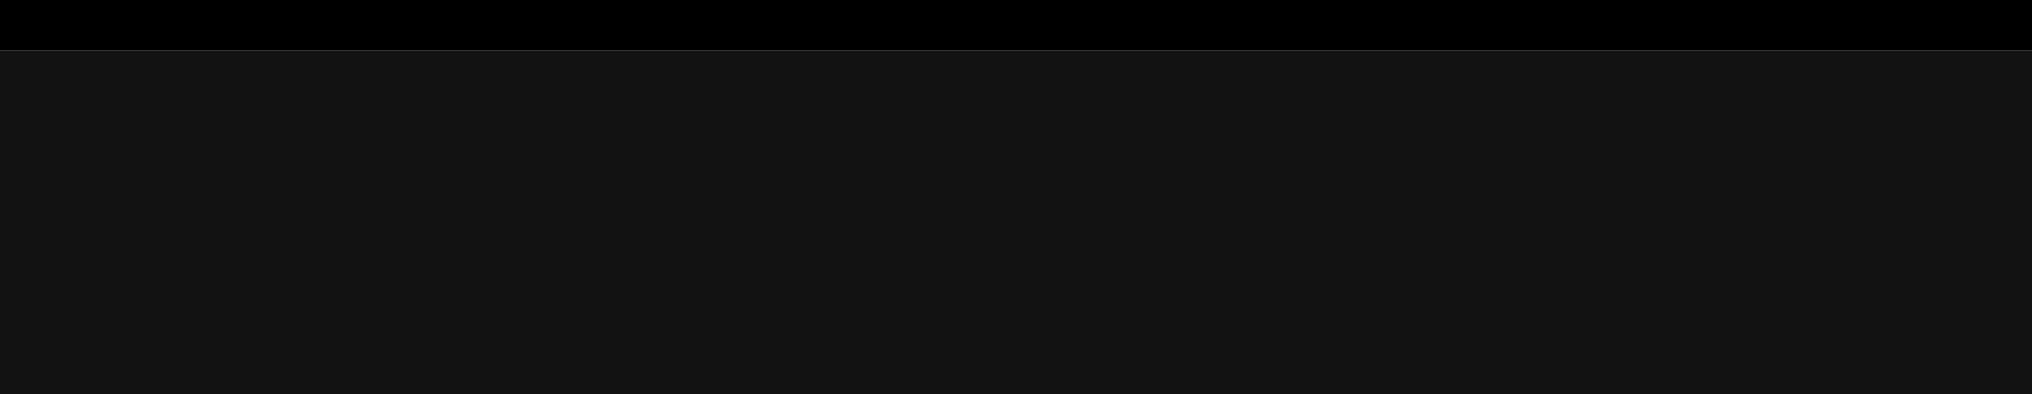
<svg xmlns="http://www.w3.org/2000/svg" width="2032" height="394">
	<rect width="100%" height="100%" fill="#121212" />
	<rect x="0" y="0" width="2032" height="50" fill="#000000" />
	<rect x="0" y="50" width="2032" height="1" fill="#333333" />
</svg>
